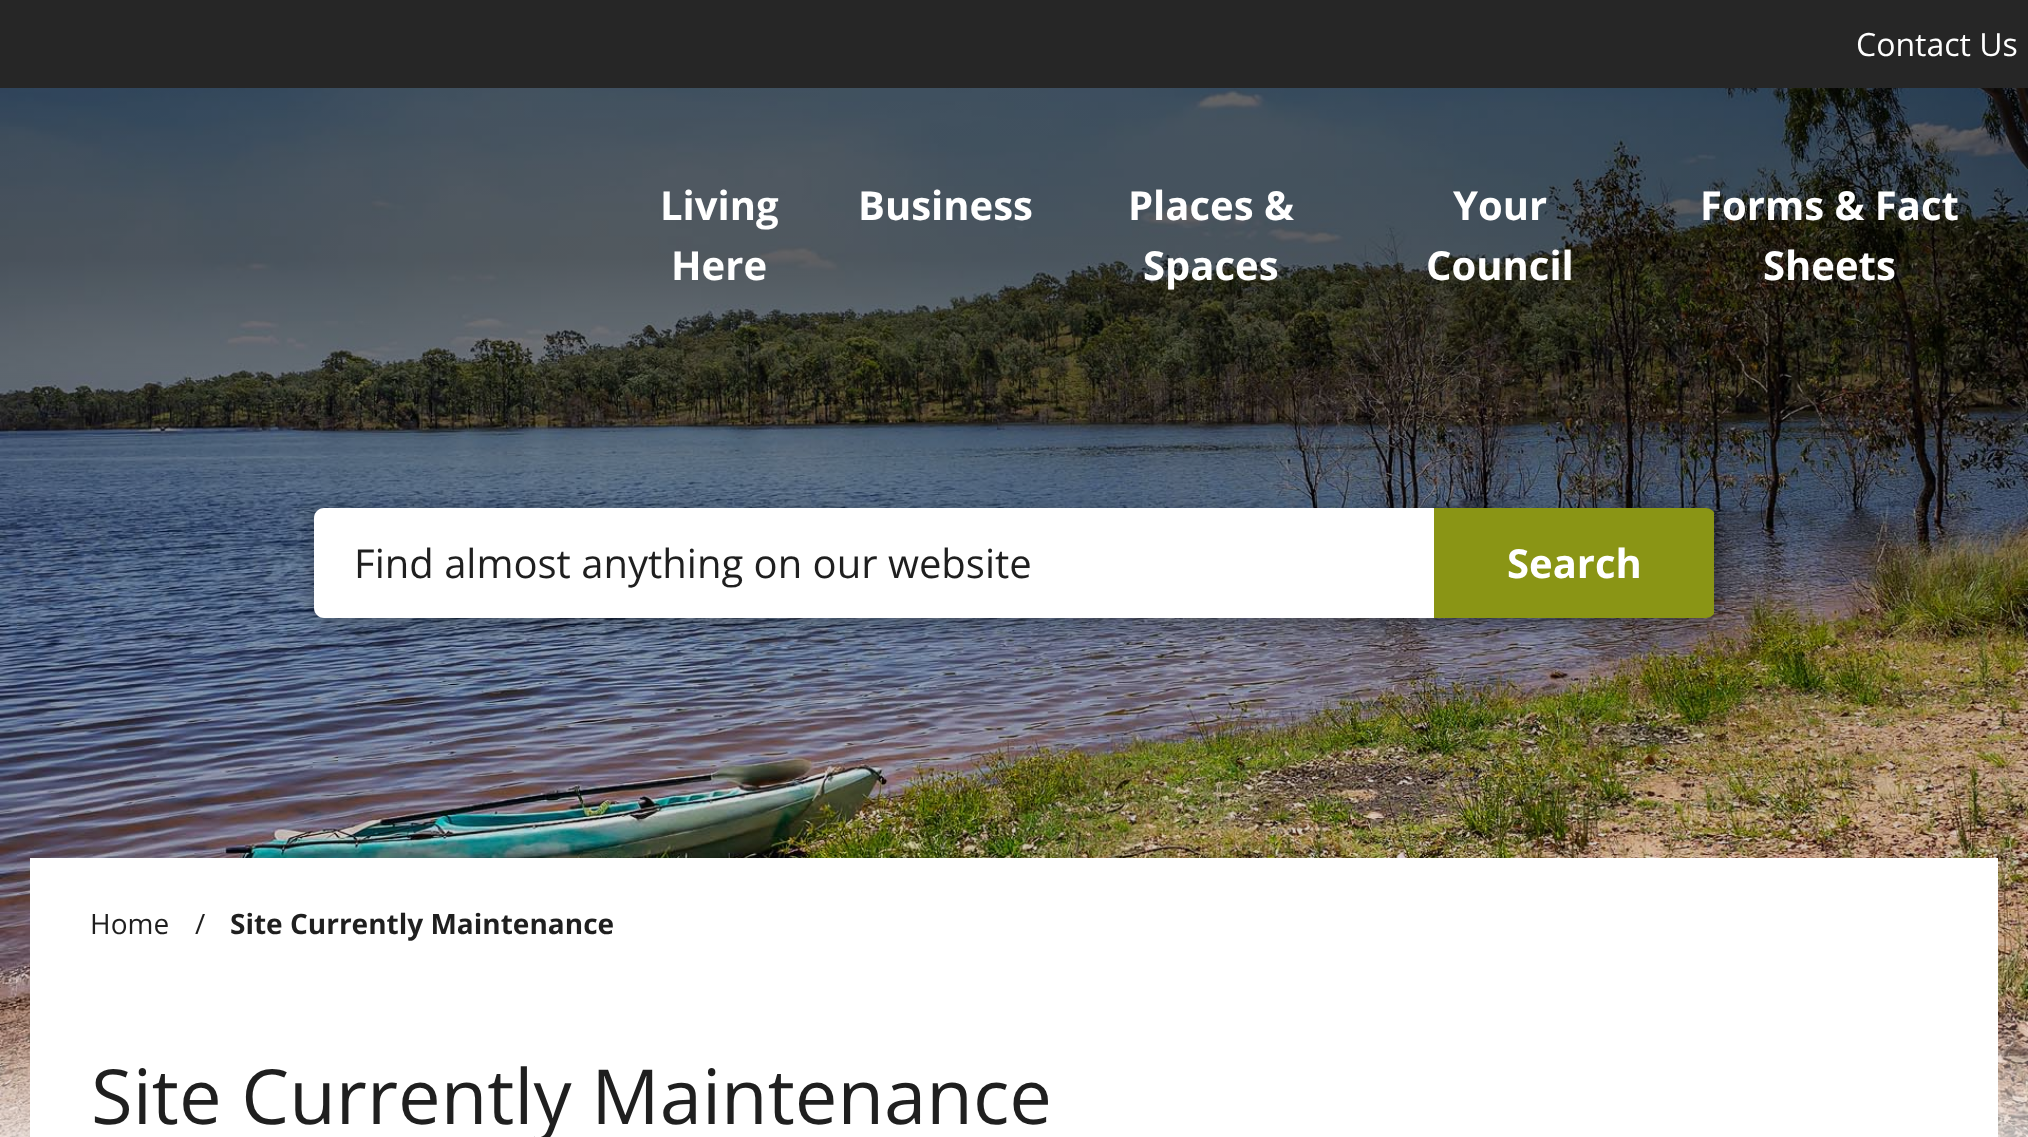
<svg xmlns="http://www.w3.org/2000/svg" width="2028" height="1137">
	<defs>
		<linearGradient id="g1" gradientUnits="userSpaceOnUse" x1="1014" y1="88" x2="1014" y2="638"><stop offset="0" stop-color="#000000" stop-opacity="0.6" /><stop offset="0.31" stop-color="#000000" stop-opacity="0.6" /><stop offset="1" stop-color="#000000" stop-opacity="0.2" /></linearGradient>
		<clipPath id="clip1"><rect x="314" y="508" width="1402" height="110" rx="10" /></clipPath>
		<linearGradient id="g2" gradientUnits="userSpaceOnUse" x1="1014" y1="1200" x2="1014" y2="2"><stop offset="0" stop-color="#FFFFFF" /><stop offset="0.17" stop-color="#FFFFFF" stop-opacity="0" /></linearGradient>
		<linearGradient id="g3" gradientUnits="userSpaceOnUse" x1="1014" y1="638" x2="1014" y2="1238"><stop offset="0" stop-color="#000000" stop-opacity="0.2" /><stop offset="1" stop-color="#000000" stop-opacity="0" /></linearGradient>
	</defs>
	<rect width="100%" height="100%" fill="#FFFFFF" />
	<image x="0" y="88" width="2028" height="1049" href="assets/img1.png" />
	<rect x="0" y="0" width="2028" height="88" fill="#262626" />
	<text x="1856" y="56" font-family="Open Sans" font-size="32" fill="#FFFFFF">Contact Us</text>
	<rect x="0" y="88" width="2028" height="550" fill="url(#g1)" />
	<g font-family="Open Sans" font-size="40" font-weight="700" fill="#FFFFFF">
		<text x="660" y="220">Living</text>
		<text x="671" y="280">Here</text>
		<text x="858" y="220">Business</text>
		<text x="1128" y="220">Places &amp;</text>
		<text x="1143" y="280">Spaces</text>
		<text x="1453" y="220">Your</text>
		<text x="1426" y="280">Council</text>
		<text x="1700" y="220">Forms &amp; Fact</text>
		<text x="1763" y="280">Sheets</text>
	</g>
	<rect x="314" y="514" width="1402" height="110" rx="10" fill="#000000" fill-opacity="0.3" filter="blur(10px)" />
	<path d="M324 508H1434V618H324C318.5 618 314 613.5 314 608V518C314 512.5 318.5 508 324 508Z" fill="#FFFFFF" />
	<text x="354" y="578" font-family="Open Sans" font-size="40" fill="#1F1F1F">Find almost anything on our website</text>
	<g clip-path="url(#clip1)">
		<rect x="1434" y="508" width="280" height="110" fill="#8A9515" />
	</g>
	<text x="1507" y="578" font-family="Open Sans" font-size="40" font-weight="700" fill="#FFFFFF">Search</text>
	<rect x="0" y="1001" width="2028" height="136" fill="url(#g2)" />
	<rect x="0" y="638" width="2028" height="499" fill="url(#g3)" />
	<rect x="30" y="858" width="1968" height="279" fill="#FFFFFF" />
	<g font-family="Open Sans" font-size="28" fill="#1F1F1F">
		<text x="90" y="934">Home</text>
		<text x="195" y="934">/</text>
	</g>
	<text x="230" y="934" font-family="Open Sans" font-size="28" font-weight="700" fill="#1F1F1F">Site Currently Maintenance</text>
	<text x="91" y="1124" font-family="Open Sans" font-size="76" fill="#1F1F1F">Site Currently Maintenance</text>
</svg>
